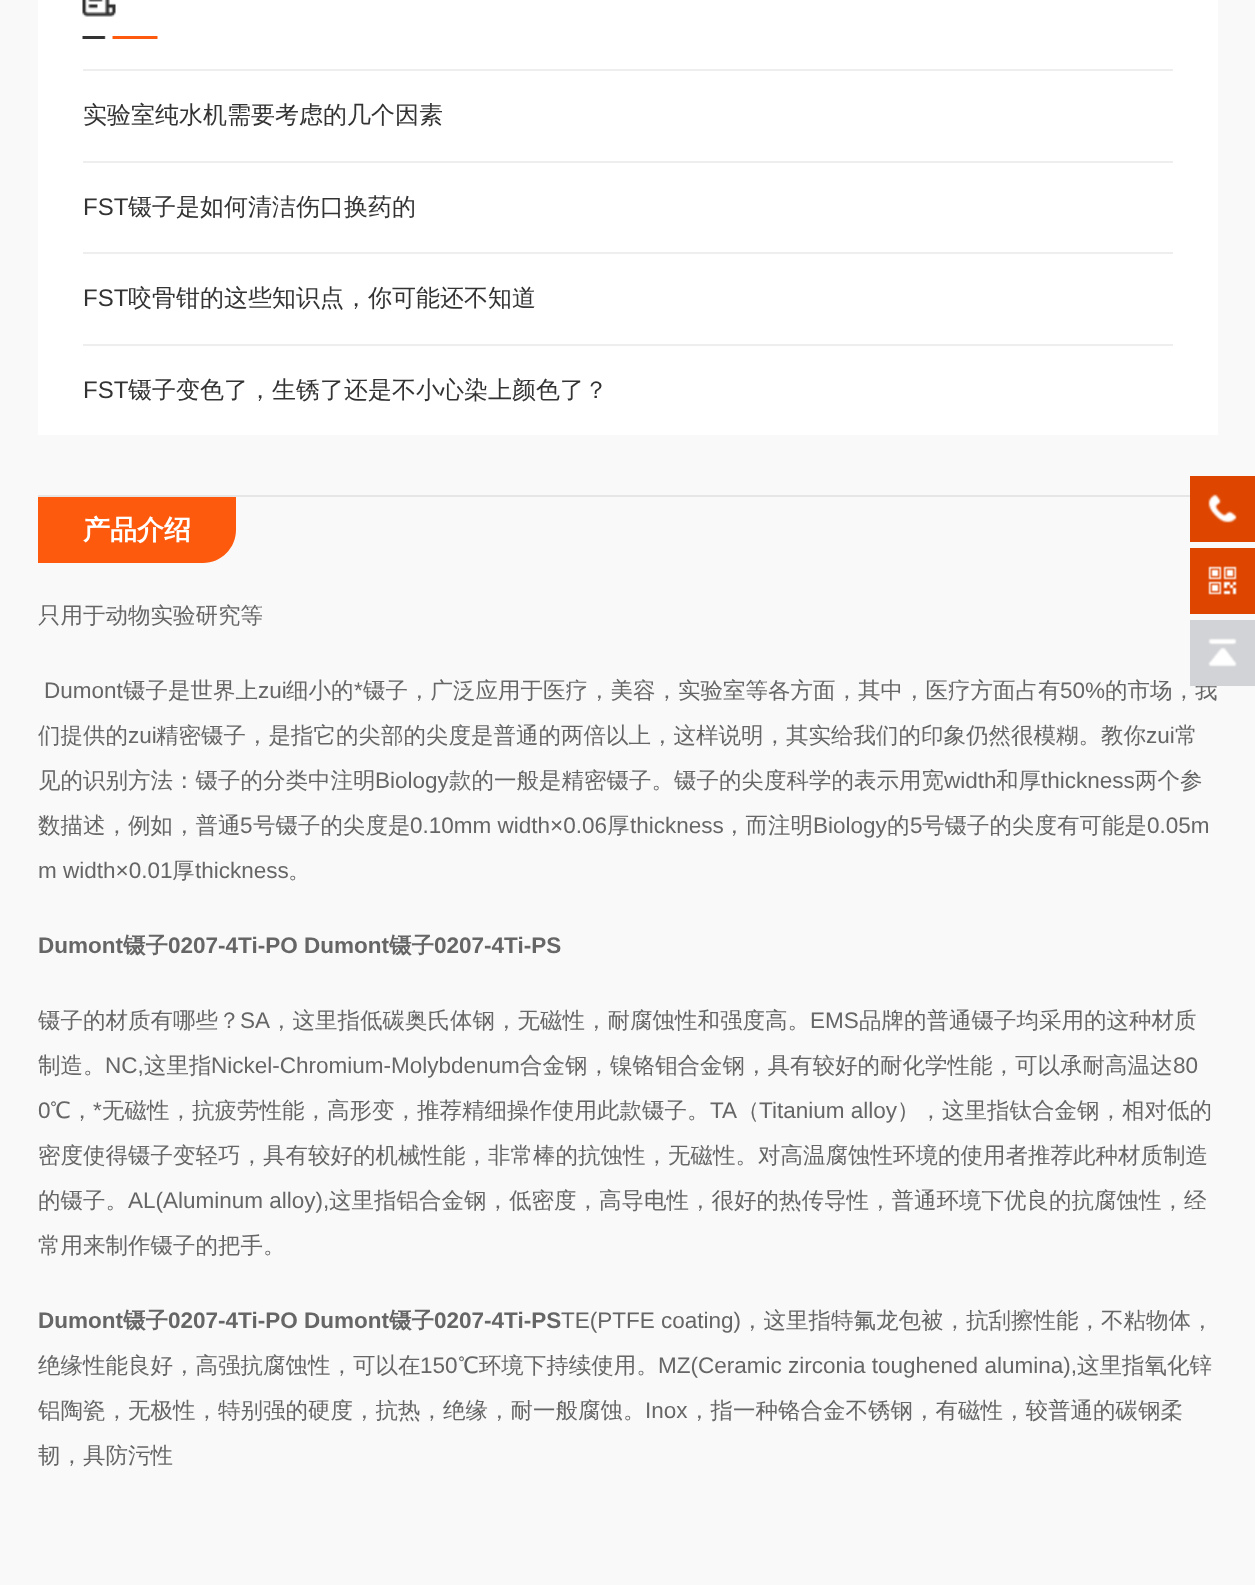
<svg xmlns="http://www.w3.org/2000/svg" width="1255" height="1585">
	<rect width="100%" height="100%" fill="#F9F9F9" />
	<rect x="38" y="0" width="1180" height="435" fill="#FFFFFF" />
	<image x="82" y="0" width="34" height="17" href="assets/img1.png" />
	<image x="82" y="36" width="76" height="3" href="assets/img2.png" />
	<rect x="83" y="69" width="1090" height="2" fill="#EEEEEE" />
	<text x="83" y="123" font-family="WenQuanYi Zen Hei" font-size="24" font-weight="500" fill="#333333">实验室纯水机需要考虑的几个因素</text>
	<rect x="83" y="161" width="1090" height="2" fill="#EEEEEE" />
	<text x="83" y="215" font-family="Liberation Sans" font-size="24" fill="#333333">FST</text>
	<text x="128" y="215" font-family="WenQuanYi Zen Hei" font-size="24" font-weight="500" fill="#333333">镊子是如何清洁伤口换药的</text>
	<rect x="83" y="252" width="1090" height="2" fill="#EEEEEE" />
	<text x="83" y="306" font-family="Liberation Sans" font-size="24" fill="#333333">FST</text>
	<text x="128" y="306" font-family="WenQuanYi Zen Hei" font-size="24" font-weight="500" fill="#333333">咬骨钳的这些知识点，你可能还不知道</text>
	<rect x="83" y="344" width="1090" height="2" fill="#EEEEEE" />
	<text x="83" y="398" font-family="Liberation Sans" font-size="24" fill="#333333">FST</text>
	<text x="128" y="398" font-family="WenQuanYi Zen Hei" font-size="24" font-weight="500" fill="#333333">镊子变色了，生锈了还是不小心染上颜色了？</text>
	<rect x="38" y="495" width="1152" height="2" fill="#E6E6E6" />
	<path d="M38 497H236V530C236 548 221 563 203 563H38Z" fill="#FE5A0E" />
	<text x="83" y="539" font-family="WenQuanYi Zen Hei" font-size="27" font-weight="700" fill="#FFFFFF">产品介绍</text>
	<text x="38" y="623" font-family="WenQuanYi Zen Hei" font-size="22.5" font-weight="500" fill="#666666">只用于动物实验研究等</text>
	<text x="44" y="698" font-family="Liberation Sans" font-size="22.5" fill="#666666">Dumont</text>
	<text x="123" y="698" font-family="WenQuanYi Zen Hei" font-size="22.5" font-weight="500" fill="#666666">镊子是世界上</text>
	<text x="258" y="698" font-family="Liberation Sans" font-size="22.5" fill="#666666">zui</text>
	<text x="286" y="698" font-family="WenQuanYi Zen Hei" font-size="22.5" font-weight="500" fill="#666666">细小的</text>
	<text x="354" y="698" font-family="Liberation Sans" font-size="22.5" fill="#666666">*</text>
	<text x="363" y="698" font-family="WenQuanYi Zen Hei" font-size="22.5" font-weight="500" fill="#666666">镊子，广泛应用于医疗，美容，实验室等各方面，其中，医疗方面占有</text>
	<text x="1060" y="698" font-family="Liberation Sans" font-size="22.5" fill="#666666">50%</text>
	<g font-family="WenQuanYi Zen Hei" font-size="22.5" font-weight="500" fill="#666666">
		<text x="1105" y="698">的市场，我</text>
		<text x="38" y="743">们提供的</text>
	</g>
	<text x="128" y="743" font-family="Liberation Sans" font-size="22.5" fill="#666666">zui</text>
	<text x="156" y="743" font-family="WenQuanYi Zen Hei" font-size="22.5" font-weight="500" fill="#666666">精密镊子，是指它的尖部的尖度是普通的两倍以上，这样说明，其实给我们的印象仍然很模糊。教你</text>
	<text x="1146" y="743" font-family="Liberation Sans" font-size="22.5" fill="#666666">zui</text>
	<g font-family="WenQuanYi Zen Hei" font-size="22.5" font-weight="500" fill="#666666">
		<text x="1175" y="743">常</text>
		<text x="38" y="788">见的识别方法：镊子的分类中注明</text>
	</g>
	<text x="375" y="788" font-family="Liberation Sans" font-size="22.5" fill="#666666">Biology</text>
	<text x="449" y="788" font-family="WenQuanYi Zen Hei" font-size="22.5" font-weight="500" fill="#666666">款的一般是精密镊子。镊子的尖度科学的表示用宽</text>
	<text x="944" y="788" font-family="Liberation Sans" font-size="22.5" fill="#666666">width</text>
	<text x="996" y="788" font-family="WenQuanYi Zen Hei" font-size="22.5" font-weight="500" fill="#666666">和厚</text>
	<text x="1041" y="788" font-family="Liberation Sans" font-size="22.5" fill="#666666">thickness</text>
	<g font-family="WenQuanYi Zen Hei" font-size="22.5" font-weight="500" fill="#666666">
		<text x="1135" y="788">两个参</text>
		<text x="38" y="833">数描述，例如，普通</text>
	</g>
	<text x="240" y="833" font-family="Liberation Sans" font-size="22.5" fill="#666666">5</text>
	<text x="253" y="833" font-family="WenQuanYi Zen Hei" font-size="22.5" font-weight="500" fill="#666666">号镊子的尖度是</text>
	<text x="410" y="833" font-family="Liberation Sans" font-size="22.5" fill="#666666">0.10mm width×0.06</text>
	<text x="607" y="833" font-family="WenQuanYi Zen Hei" font-size="22.5" font-weight="500" fill="#666666">厚</text>
	<text x="630" y="833" font-family="Liberation Sans" font-size="22.5" fill="#666666">thickness</text>
	<text x="723" y="833" font-family="WenQuanYi Zen Hei" font-size="22.5" font-weight="500" fill="#666666">，而注明</text>
	<text x="813" y="833" font-family="Liberation Sans" font-size="22.5" fill="#666666">Biology</text>
	<text x="887" y="833" font-family="WenQuanYi Zen Hei" font-size="22.5" font-weight="500" fill="#666666">的</text>
	<text x="910" y="833" font-family="Liberation Sans" font-size="22.5" fill="#666666">5</text>
	<text x="922" y="833" font-family="WenQuanYi Zen Hei" font-size="22.5" font-weight="500" fill="#666666">号镊子的尖度有可能是</text>
	<g font-family="Liberation Sans" font-size="22.5" fill="#666666">
		<text x="1147" y="833">0.05m</text>
		<text x="38" y="878">m width×0.01</text>
	</g>
	<text x="172" y="878" font-family="WenQuanYi Zen Hei" font-size="22.5" font-weight="500" fill="#666666">厚</text>
	<text x="195" y="878" font-family="Liberation Sans" font-size="22.5" fill="#666666">thickness</text>
	<text x="288" y="878" font-family="WenQuanYi Zen Hei" font-size="22.5" font-weight="500" fill="#666666">。</text>
	<text x="38" y="953" font-family="Liberation Sans" font-size="22.5" font-weight="700" fill="#666666">Dumont</text>
	<text x="123" y="953" font-family="WenQuanYi Zen Hei" font-size="22.5" font-weight="700" fill="#666666">镊子</text>
	<text x="168" y="953" font-family="Liberation Sans" font-size="22.5" font-weight="700" fill="#666666">0207-4Ti-PO Dumont</text>
	<text x="389" y="953" font-family="WenQuanYi Zen Hei" font-size="22.5" font-weight="700" fill="#666666">镊子</text>
	<text x="434" y="953" font-family="Liberation Sans" font-size="22.5" font-weight="700" fill="#666666">0207-4Ti-PS</text>
	<text x="38" y="1028" font-family="WenQuanYi Zen Hei" font-size="22.5" font-weight="500" fill="#666666">镊子的材质有哪些？</text>
	<text x="240" y="1028" font-family="Liberation Sans" font-size="22.5" fill="#666666">SA</text>
	<text x="270" y="1028" font-family="WenQuanYi Zen Hei" font-size="22.5" font-weight="500" fill="#666666">，这里指低碳奥氏体钢，无磁性，耐腐蚀性和强度高。</text>
	<text x="810" y="1028" font-family="Liberation Sans" font-size="22.5" fill="#666666">EMS</text>
	<g font-family="WenQuanYi Zen Hei" font-size="22.5" font-weight="500" fill="#666666">
		<text x="859" y="1028">品牌的普通镊子均采用的这种材质</text>
		<text x="38" y="1073">制造。</text>
	</g>
	<text x="105" y="1073" font-family="Liberation Sans" font-size="22.5" fill="#666666">NC,</text>
	<text x="144" y="1073" font-family="WenQuanYi Zen Hei" font-size="22.5" font-weight="500" fill="#666666">这里指</text>
	<text x="211" y="1073" font-family="Liberation Sans" font-size="22.5" fill="#666666">Nickel-Chromium-Molybdenum</text>
	<text x="520" y="1073" font-family="WenQuanYi Zen Hei" font-size="22.5" font-weight="500" fill="#666666">合金钢，镍铬钼合金钢，具有较好的耐化学性能，可以承耐高温达</text>
	<g font-family="Liberation Sans" font-size="22.5" fill="#666666">
		<text x="1173" y="1073">80</text>
		<text x="38" y="1118">0</text>
	</g>
	<text x="50" y="1118" font-family="WenQuanYi Zen Hei" font-size="22.5" font-weight="500" fill="#666666">℃，</text>
	<text x="93" y="1118" font-family="Liberation Sans" font-size="22.5" fill="#666666">*</text>
	<text x="102" y="1118" font-family="WenQuanYi Zen Hei" font-size="22.5" font-weight="500" fill="#666666">无磁性，抗疲劳性能，高形变，推荐精细操作使用此款镊子。</text>
	<text x="710" y="1118" font-family="Liberation Sans" font-size="22.5" fill="#666666">TA</text>
	<text x="737" y="1118" font-family="WenQuanYi Zen Hei" font-size="22.5" font-weight="500" fill="#666666">（</text>
	<text x="759" y="1118" font-family="Liberation Sans" font-size="22.5" fill="#666666">Titanium alloy</text>
	<g font-family="WenQuanYi Zen Hei" font-size="22.5" font-weight="500" fill="#666666">
		<text x="897" y="1118">），这里指钛合金钢，相对低的</text>
		<text x="38" y="1163">密度使得镊子变轻巧，具有较好的机械性能，非常棒的抗蚀性，无磁性。对高温腐蚀性环境的使用者推荐此种材质制造</text>
		<text x="38" y="1208">的镊子。</text>
	</g>
	<text x="128" y="1208" font-family="Liberation Sans" font-size="22.5" fill="#666666">AL(Aluminum alloy),</text>
	<g font-family="WenQuanYi Zen Hei" font-size="22.5" font-weight="500" fill="#666666">
		<text x="329" y="1208">这里指铝合金钢，低密度，高导电性，很好的热传导性，普通环境下优良的抗腐蚀性，经</text>
		<text x="38" y="1253">常用来制作镊子的把手。</text>
	</g>
	<text x="38" y="1328" font-family="Liberation Sans" font-size="22.5" font-weight="700" fill="#666666">Dumont</text>
	<text x="123" y="1328" font-family="WenQuanYi Zen Hei" font-size="22.5" font-weight="700" fill="#666666">镊子</text>
	<text x="168" y="1328" font-family="Liberation Sans" font-size="22.5" font-weight="700" fill="#666666">0207-4Ti-PO Dumont</text>
	<text x="389" y="1328" font-family="WenQuanYi Zen Hei" font-size="22.5" font-weight="700" fill="#666666">镊子</text>
	<text x="434" y="1328" font-family="Liberation Sans" font-size="22.5" font-weight="700" fill="#666666">0207-4Ti-PS</text>
	<text x="561" y="1328" font-family="Liberation Sans" font-size="22.5" fill="#666666">TE(PTFE coating)</text>
	<g font-family="WenQuanYi Zen Hei" font-size="22.5" font-weight="500" fill="#666666">
		<text x="741" y="1328">，这里指特氟龙包被，抗刮擦性能，不粘物体，</text>
		<text x="38" y="1373">绝缘性能良好，高强抗腐蚀性，可以在</text>
	</g>
	<text x="420" y="1373" font-family="Liberation Sans" font-size="22.5" fill="#666666">150</text>
	<text x="458" y="1373" font-family="WenQuanYi Zen Hei" font-size="22.5" font-weight="500" fill="#666666">℃环境下持续使用。</text>
	<text x="658" y="1373" font-family="Liberation Sans" font-size="22.5" fill="#666666">MZ(Ceramic zirconia toughened alumina),</text>
	<g font-family="WenQuanYi Zen Hei" font-size="22.5" font-weight="500" fill="#666666">
		<text x="1077" y="1373">这里指氧化锌</text>
		<text x="38" y="1418">铝陶瓷，无极性，特别强的硬度，抗热，绝缘，耐一般腐蚀。</text>
	</g>
	<text x="645" y="1418" font-family="Liberation Sans" font-size="22.5" fill="#666666">Inox</text>
	<g font-family="WenQuanYi Zen Hei" font-size="22.5" font-weight="500" fill="#666666">
		<text x="688" y="1418">，指一种铬合金不锈钢，有磁性，较普通的碳钢柔</text>
		<text x="38" y="1463">韧，具防污性</text>
	</g>
	<rect x="1190" y="476" width="65" height="66" fill="#DE4600" />
	<image x="1208" y="494" width="29" height="29" href="assets/img3.png" />
	<rect x="1190" y="548" width="65" height="66" fill="#DE4600" />
	<image x="1208" y="566" width="29" height="29" href="assets/img4.png" />
	<rect x="1190" y="620" width="65" height="66" fill="#D2D3D6" />
	<image x="1208" y="638" width="29" height="29" href="assets/img5.png" />
</svg>
